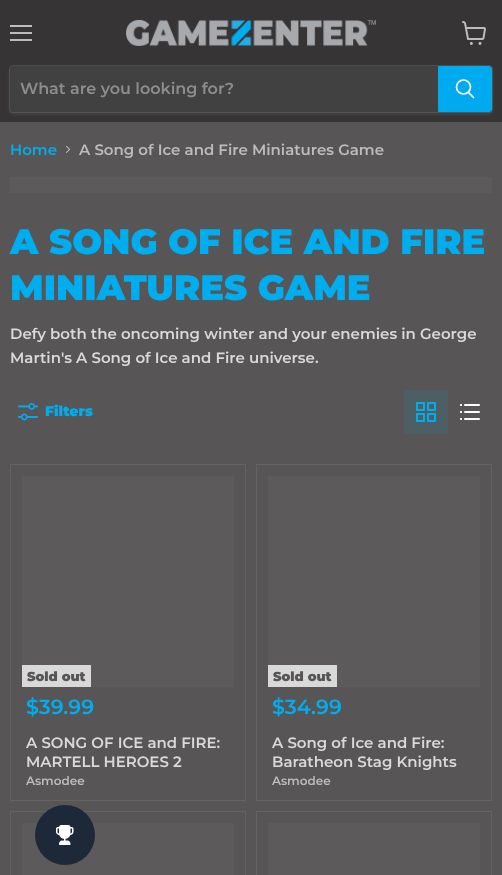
<svg xmlns="http://www.w3.org/2000/svg" width="502" height="875">
	<rect width="100%" height="100%" fill="#575556" />
	<rect x="0" y="0" width="502" height="122" fill="#363434" />
	<rect x="10" y="25" width="22" height="2" fill="#BCBCBC" />
	<rect x="10" y="32" width="22" height="2" fill="#BCBCBC" />
	<rect x="10" y="39" width="22" height="2" fill="#BCBCBC" />
	<image x="462" y="21" width="24" height="24" href="assets/img1.png" />
	<image x="126" y="20" width="250" height="26" href="assets/img2.png" />
	<rect x="9" y="67" width="484" height="48" rx="4" fill="#ABAAAB" fill-opacity="0.11" filter="blur(1.5px)" />
	<rect x="9.5" y="65.5" width="483" height="47" rx="3.5" fill="none" stroke="#ABAAAB" stroke-opacity="0.2" />
	<path d="M13 66H438V112H13C11.5 112 10 110.5 10 109V69C10 67.5 11.5 66 13 66Z" fill="#414141" />
	<text x="20" y="94" font-family="Montserrat" font-size="16" font-weight="600" fill="#8D8D8D">What are you looking for?</text>
	<path d="M438.5 66.5H489C490.5 66.5 491.5 67.5 491.5 69V109C491.5 110.5 490.5 111.5 489 111.5H438.5Z" fill="#00AAEF" stroke="#00AAEF" />
	<path d="M473.5 97.5L468.5 92.5" fill="none" stroke="#FFFFFF" stroke-width="1.7" stroke-linecap="round" />
	<circle cx="463.5" cy="87" r="7" fill="none" stroke="#FFFFFF" stroke-width="1.7" />
	<text x="10" y="155" font-family="Montserrat" font-size="15" font-weight="600" fill="#00AEEF">Home</text>
	<image x="66" y="145" width="5" height="8" href="assets/img3.png" />
	<text x="79" y="155" font-family="Montserrat" font-size="15" font-weight="600" fill="#BCBCBC">A Song of Ice and Fire Miniatures Game</text>
	<rect x="10" y="177" width="482" height="16" fill="#5C5A5B" />
	<g font-family="Montserrat" font-size="35.25" font-weight="100" fill="#00AEEF">
		<text x="10" y="254">A SONG OF ICE AND FIRE</text>
		<text x="10" y="300">MINIATURES GAME</text>
	</g>
	<g font-family="Montserrat" font-size="15" font-weight="600" fill="#D9D9D9">
		<text x="10" y="339">Defy both the oncoming winter and your enemies in George</text>
		<text x="10" y="363">Martin's A Song of Ice and Fire universe.</text>
	</g>
	<image x="18" y="403" width="20" height="18" href="assets/img4.png" />
	<text x="45" y="416" font-family="Montserrat" font-size="14" font-weight="100" fill="#00AEEF">Filters</text>
	<rect x="404" y="390" width="44" height="44" rx="3" fill="#4E5E65" />
	<image x="416" y="402" width="20" height="20" href="assets/img5.png" />
	<image x="460" y="404" width="20" height="16" href="assets/img6.png" />
	<rect x="10.5" y="464.5" width="235" height="336" fill="none" stroke="#646364" />
	<rect x="22" y="476" width="212" height="211" fill="#5C5A5B" />
	<rect x="22" y="665" width="69" height="22" fill="#D9D9D9" />
	<text x="27" y="681" font-family="Montserrat" font-size="13" font-weight="100" fill="#575556">Sold out</text>
	<text x="26" y="714" font-family="Montserrat" font-size="20.5" font-weight="600" fill="#00AEEF">$39.99</text>
	<g font-family="Montserrat" font-size="15" font-weight="600" fill="#D9D9D9">
		<text x="26" y="748">A SONG OF ICE and FIRE:</text>
		<text x="26" y="767">MARTELL HEROES 2</text>
	</g>
	<text x="26" y="785" font-family="Montserrat" font-size="12" font-weight="600" fill="#BCBCBC">Asmodee</text>
	<rect x="256.5" y="464.5" width="235" height="336" fill="none" stroke="#646364" />
	<rect x="268" y="476" width="212" height="211" fill="#5C5A5B" />
	<rect x="268" y="665" width="69" height="22" fill="#D9D9D9" />
	<text x="273" y="681" font-family="Montserrat" font-size="13" font-weight="100" fill="#575556">Sold out</text>
	<text x="272" y="714" font-family="Montserrat" font-size="20.5" font-weight="600" fill="#00AEEF">$34.99</text>
	<g font-family="Montserrat" font-size="15" font-weight="600" fill="#D9D9D9">
		<text x="272" y="748">A Song of Ice and Fire:</text>
		<text x="272" y="767">Baratheon Stag Knights</text>
	</g>
	<text x="272" y="785" font-family="Montserrat" font-size="12" font-weight="600" fill="#BCBCBC">Asmodee</text>
	<rect x="10.5" y="811.5" width="235" height="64" fill="none" stroke="#646364" />
	<rect x="22" y="823" width="212" height="52" fill="#5C5A5B" />
	<rect x="256.5" y="811.5" width="235" height="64" fill="none" stroke="#646364" />
	<rect x="268" y="823" width="212" height="52" fill="#5C5A5B" />
	<circle cx="65" cy="835" r="30" fill="#1D2939" />
	<image x="56" y="825" width="18" height="20" href="assets/img7.png" />
</svg>
